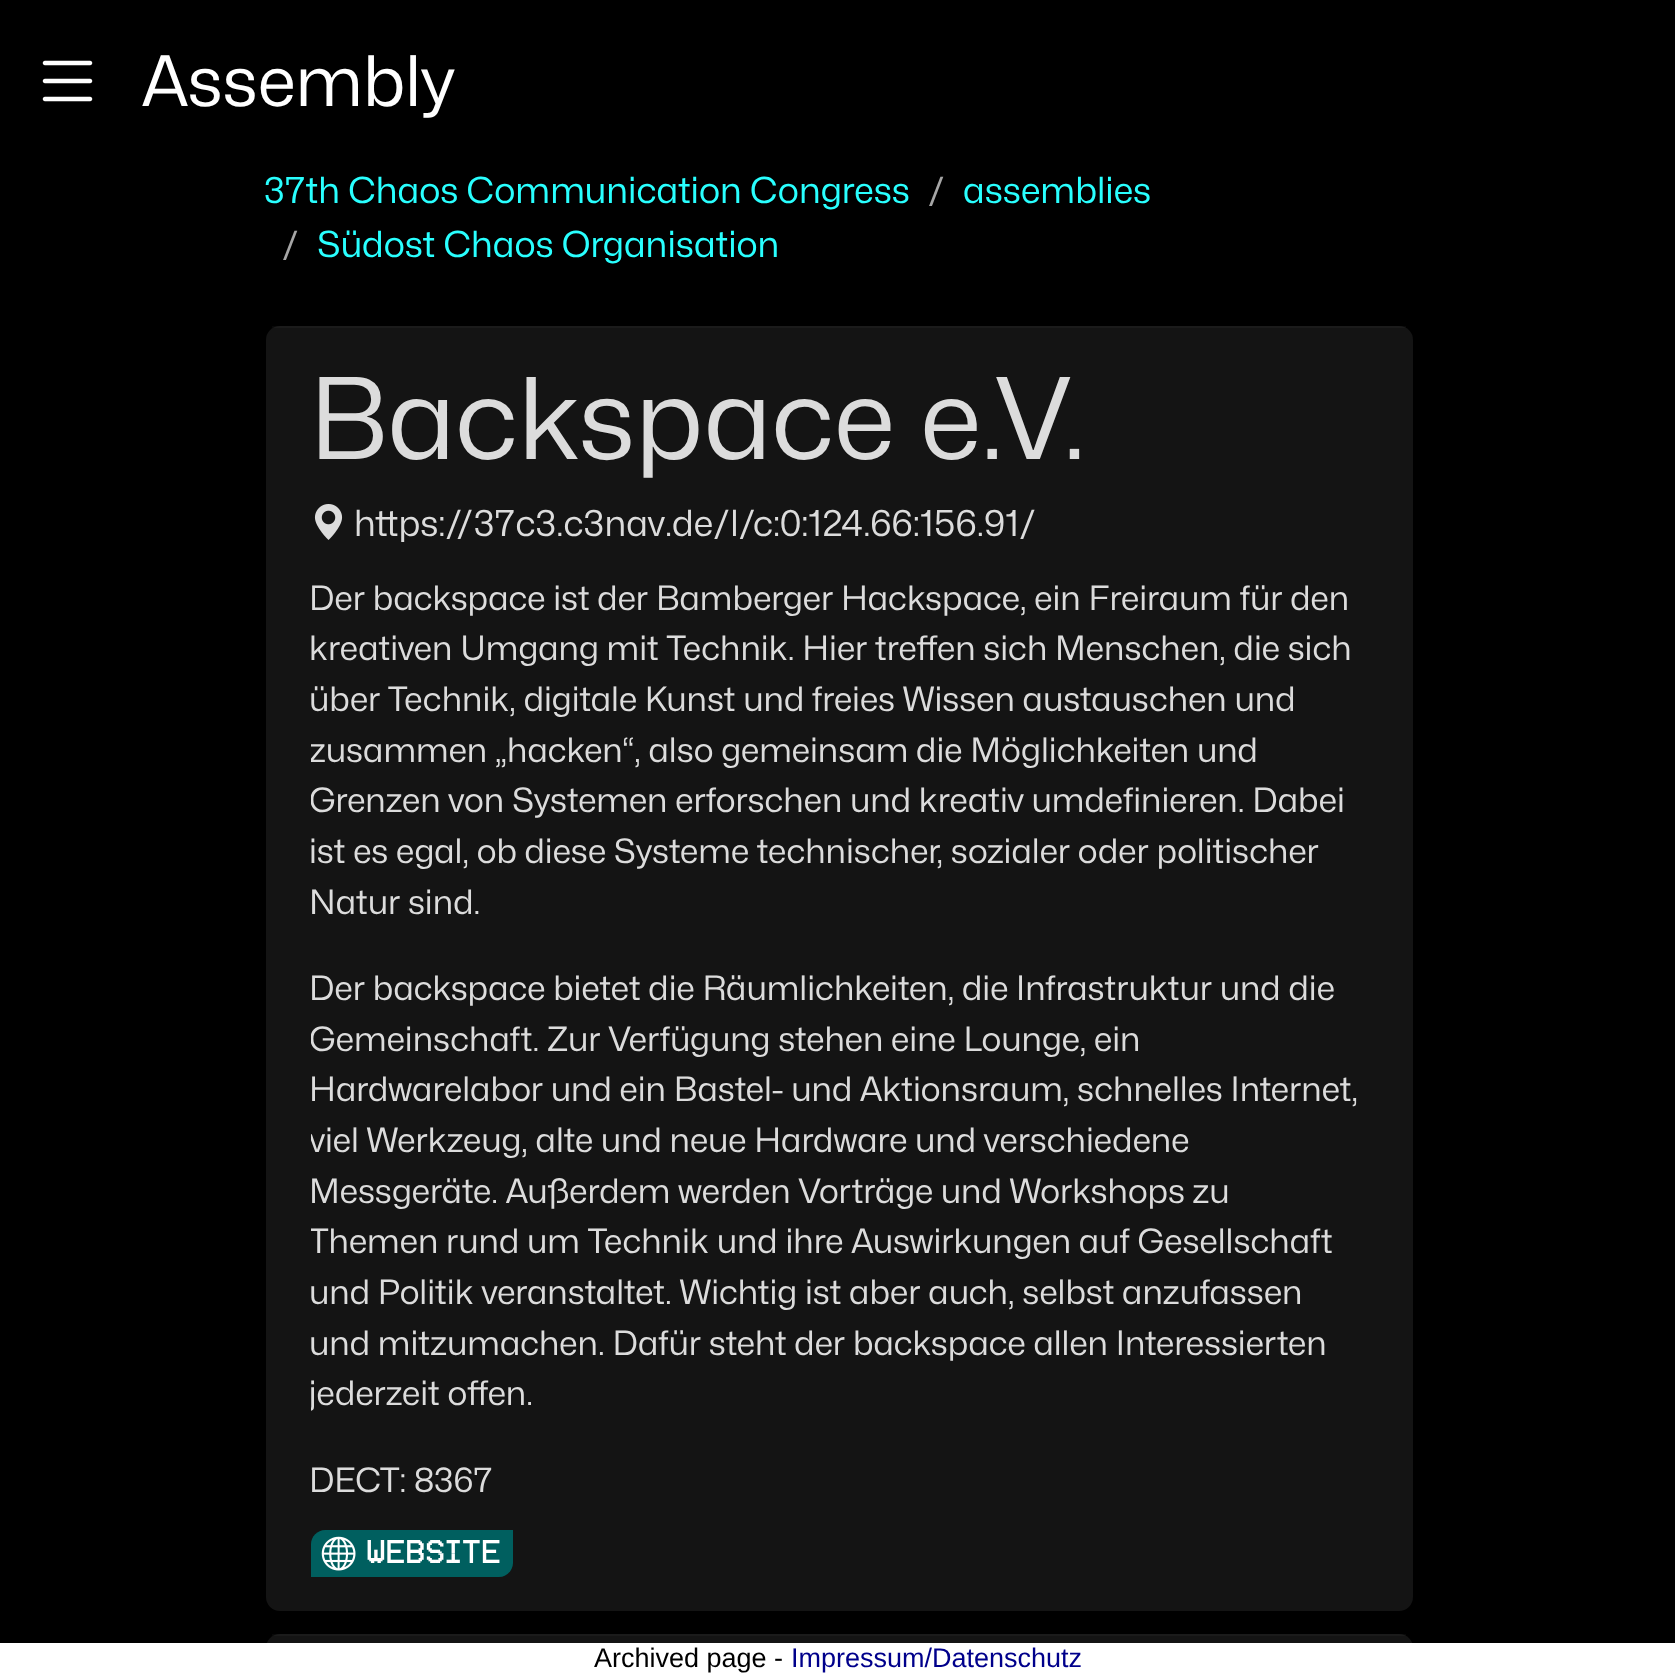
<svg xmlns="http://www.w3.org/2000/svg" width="1675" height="1677">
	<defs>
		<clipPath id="clip1"><rect x="311" y="574" width="1057" height="934" /></clipPath>
	</defs>
	<rect width="100%" height="100%" fill="#000000" />
	<image x="42" y="60" width="51" height="42" href="assets/img1.png" />
	<text x="142" y="106" font-family="Mona Sans" font-size="69.75" fill="#FFFFFF">Assembly</text>
	<text x="264" y="203" font-family="Mona Sans" font-size="36" fill="#29FFFF">37th Chaos Communication Congress</text>
	<text x="928" y="203" font-family="Mona Sans" font-size="36" fill="#A6A6A6">/</text>
	<text x="963" y="203" font-family="Mona Sans" font-size="36" fill="#29FFFF">assemblies</text>
	<text x="282" y="257" font-family="Mona Sans" font-size="36" fill="#A6A6A6">/</text>
	<text x="317" y="257" font-family="Mona Sans" font-size="36" fill="#29FFFF">Südost Chaos Organisation</text>
	<rect x="266" y="326" width="1147" height="1285" rx="14" fill="#141414" />
	<rect x="272" y="326" width="1134" height="2" fill="#FFFFFF" fill-opacity="0.03" />
	<text x="309" y="459" font-family="Mona Sans" font-size="112.5" fill="#DCDCDC">Backspace e.V.</text>
	<image x="314" y="504" width="29" height="36" href="assets/img2.png" />
	<text x="354" y="536" font-family="Mona Sans" font-size="36" fill="#DCDCDC">https://37c3.c3nav.de/l/c:0:124.66:156.91/</text>
	<g font-family="Mona Sans" font-size="33.75" fill="#DCDCDC">
		<text x="309" y="610">Der backspace ist der Bamberger Hackspace, ein Freiraum für den</text>
		<text x="309" y="660">kreativen Umgang mit Technik. Hier treffen sich Menschen, die sich</text>
		<text x="309" y="711">über Technik, digitale Kunst und freies Wissen austauschen und</text>
	</g>
	<g clip-path="url(#clip1)">
		<g font-family="Mona Sans" font-size="33.75" fill="#DCDCDC">
			<text x="309" y="762">zusammen „hacken“, also gemeinsam die Möglichkeiten und</text>
			<text x="309" y="812">Grenzen von Systemen erforschen und kreativ umdefinieren. Dabei</text>
		</g>
	</g>
	<g font-family="Mona Sans" font-size="33.75" fill="#DCDCDC">
		<text x="309" y="863">ist es egal, ob diese Systeme technischer, sozialer oder politischer</text>
		<text x="309" y="914">Natur sind.</text>
		<text x="309" y="1000">Der backspace bietet die Räumlichkeiten, die Infrastruktur und die</text>
	</g>
	<g clip-path="url(#clip1)">
		<text x="309" y="1051" font-family="Mona Sans" font-size="33.75" fill="#DCDCDC">Gemeinschaft. Zur Verfügung stehen eine Lounge, ein</text>
	</g>
	<text x="309" y="1101" font-family="Mona Sans" font-size="33.75" fill="#DCDCDC">Hardwarelabor und ein Bastel- und Aktionsraum, schnelles Internet,</text>
	<g clip-path="url(#clip1)">
		<text x="309" y="1152" font-family="Mona Sans" font-size="33.75" fill="#DCDCDC">viel Werkzeug, alte und neue Hardware und verschiedene</text>
	</g>
	<text x="309" y="1203" font-family="Mona Sans" font-size="33.75" fill="#DCDCDC">Messgeräte. Außerdem werden Vorträge und Workshops zu</text>
	<g clip-path="url(#clip1)">
		<text x="309" y="1253" font-family="Mona Sans" font-size="33.75" fill="#DCDCDC">Themen rund um Technik und ihre Auswirkungen auf Gesellschaft</text>
	</g>
	<g font-family="Mona Sans" font-size="33.75" fill="#DCDCDC">
		<text x="309" y="1304">und Politik veranstaltet. Wichtig ist aber auch, selbst anzufassen</text>
		<text x="309" y="1355">und mitzumachen. Dafür steht der backspace allen Interessierten</text>
	</g>
	<g clip-path="url(#clip1)">
		<text x="309" y="1405" font-family="Mona Sans" font-size="33.75" fill="#DCDCDC">jederzeit offen.</text>
	</g>
	<text x="309" y="1492" font-family="Mona Sans" font-size="33.75" fill="#DCDCDC">DECT: 8367</text>
	<path d="M325 1530H513V1563C513 1570.5 506.5 1577 499 1577H311V1544C311 1536.5 317.5 1530 325 1530Z" fill="#005F5F" />
	<image x="321" y="1536" width="35" height="35" href="assets/img3.png" />
	<text x="366" y="1563" font-family="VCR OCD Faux" font-size="33.75" fill="#FFFFFF">WEBSITE</text>
	<rect x="266" y="1634" width="1147" height="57" rx="14" fill="#141414" />
	<rect x="272" y="1634" width="1134" height="2" fill="#FFFFFF" fill-opacity="0.03" />
	<rect x="0" y="1643" width="1675" height="34" fill="#FFFFFF" />
	<text x="594" y="1667" font-family="Liberation Sans" font-size="27" fill="#000000">Archived page -</text>
	<text x="791" y="1667" font-family="Liberation Sans" font-size="27" fill="#00008B">Impressum/Datenschutz</text>
</svg>
